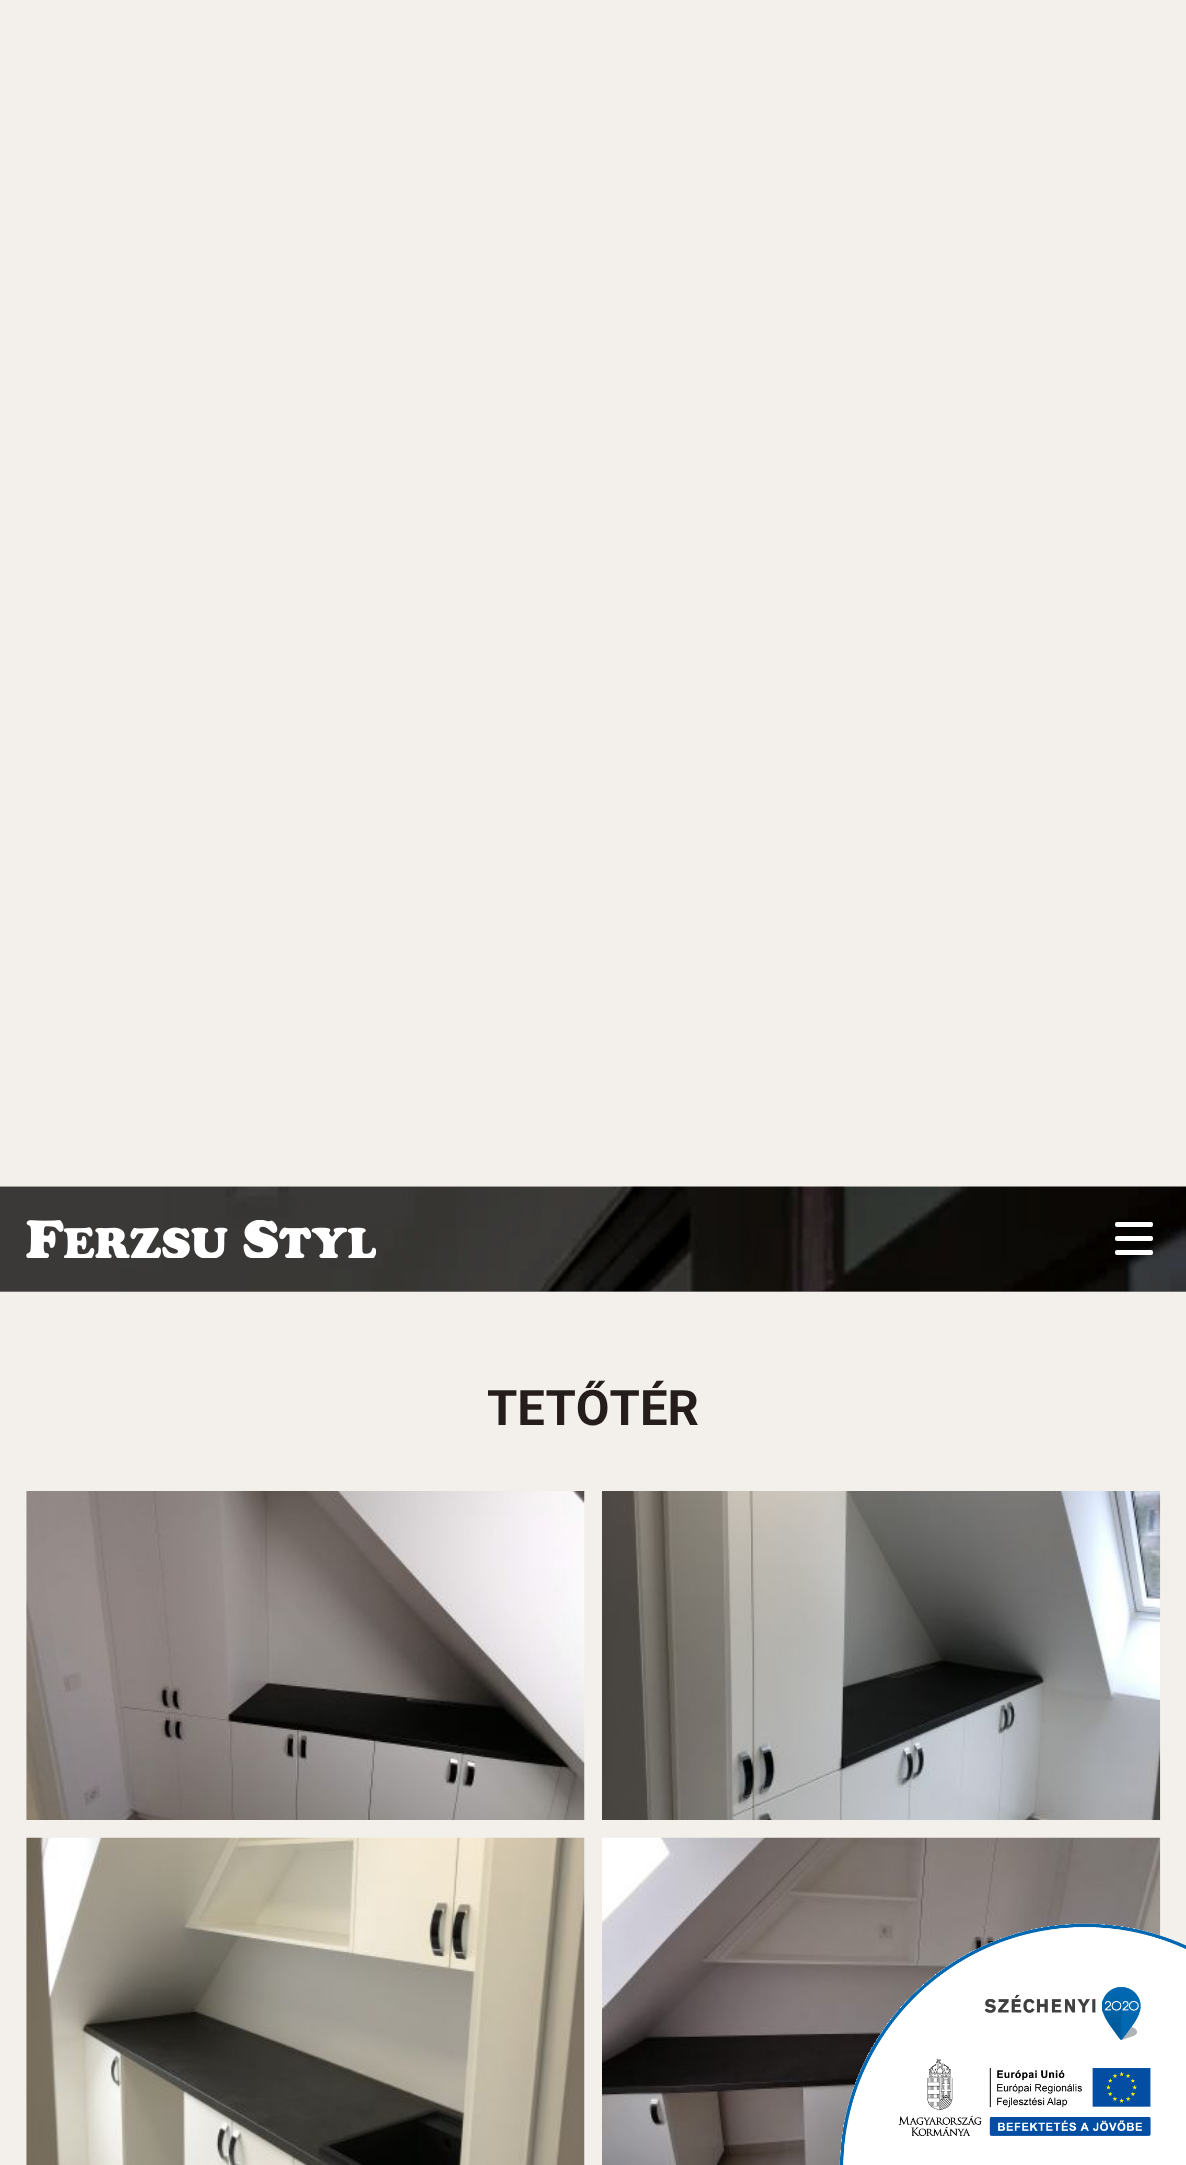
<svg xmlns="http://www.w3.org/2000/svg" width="1186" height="2165">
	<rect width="100%" height="100%" fill="#F3F0EB" />
	<rect x="0" y="1291" width="1186" height="1" fill="#AAA8A5" />
	<image x="0" y="1186" width="1186" height="106" href="assets/img2.png" />
	<image x="26" y="1220" width="350" height="38" href="assets/img1.png" />
	<rect x="1115" y="1222" width="38" height="5" rx="2" fill="#FFFFFF" />
	<rect x="1115" y="1236" width="38" height="5" rx="2" fill="#FFFFFF" />
	<rect x="1115" y="1250" width="38" height="5" rx="2" fill="#FFFFFF" />
	<text x="487" y="1425" font-family="Roboto" font-size="49" font-weight="700" fill="#241D1C">TETŐTÉR</text>
	<image x="26" y="1491" width="559" height="329" href="assets/img3.png" />
	<image x="602" y="1491" width="559" height="329" href="assets/img4.png" />
	<image x="26" y="1837" width="559" height="328" href="assets/img5.png" />
	<image x="602" y="1837" width="559" height="328" href="assets/img6.png" />
	<image x="839" y="1923" width="347" height="242" href="assets/img7.png" />
</svg>
